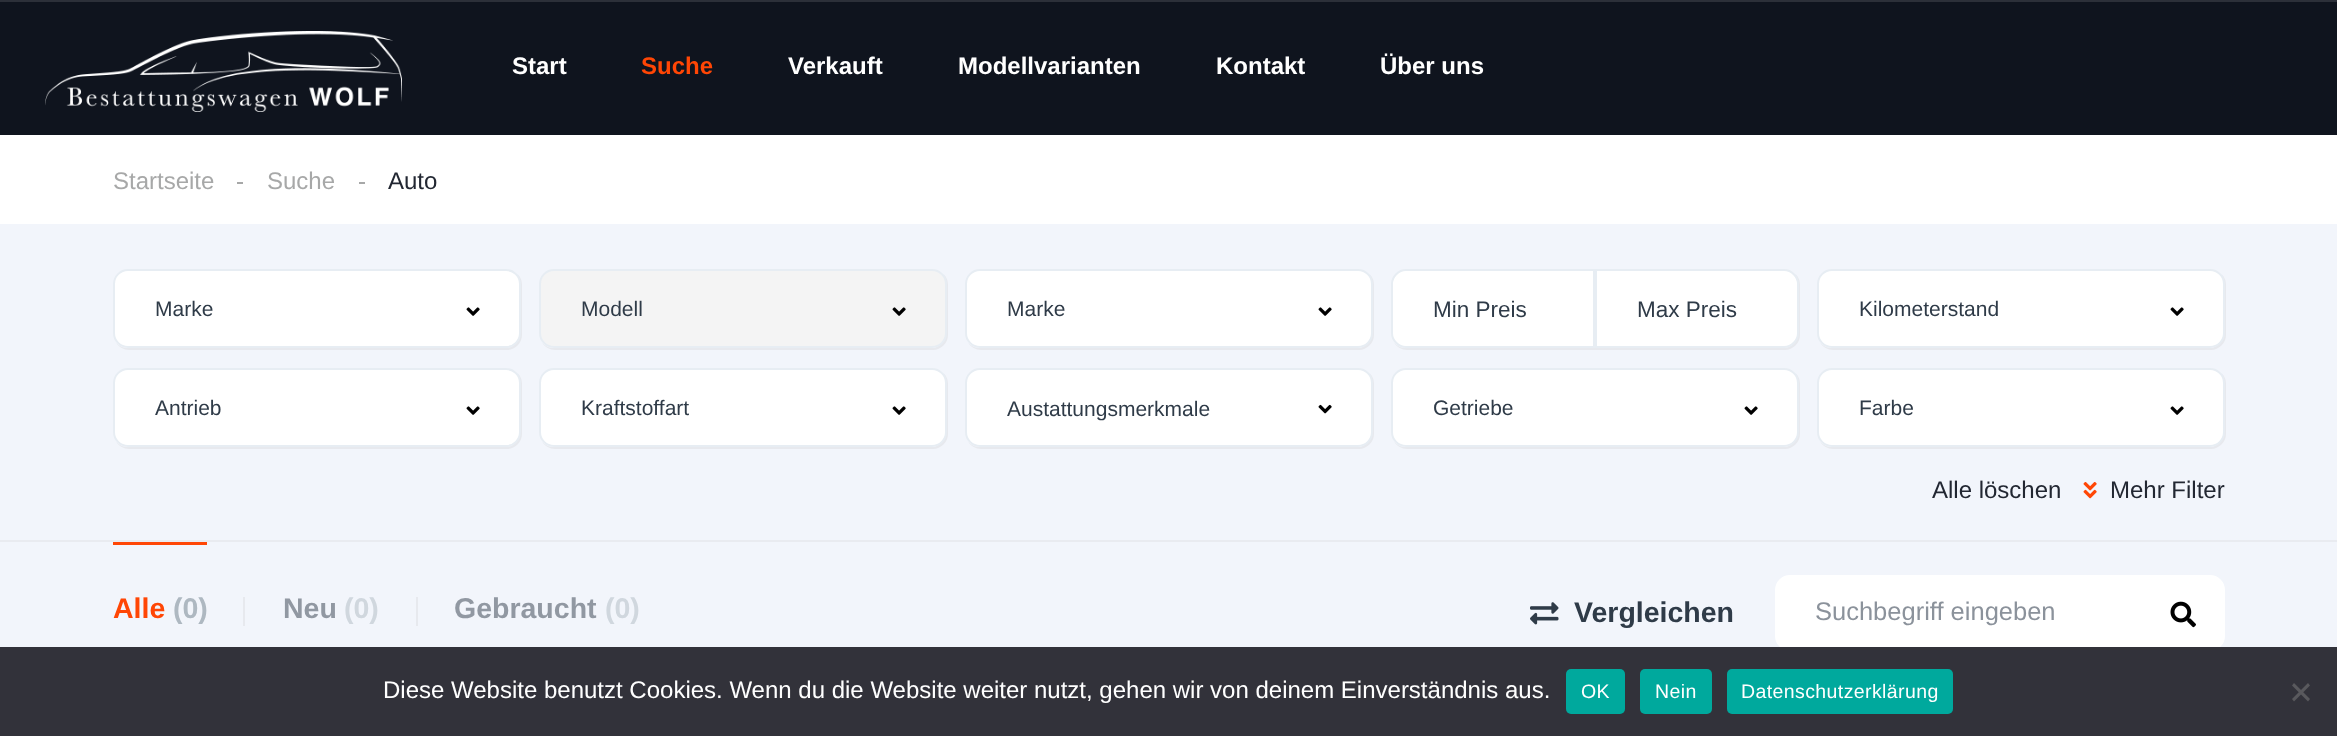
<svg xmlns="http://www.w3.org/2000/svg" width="2337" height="736">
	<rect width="100%" height="100%" fill="#FFFFFF" />
	<rect x="0" y="2" width="2337" height="133" fill="#0F141E" />
	<rect x="0" y="0" width="2337" height="2" fill="#2C3039" />
	<image x="45" y="31" width="357" height="81" href="assets/img1.png" />
	<text x="512" y="74" font-family="Liberation Sans" font-size="24" font-weight="700" fill="#FFFFFF">Start</text>
	<text x="641" y="74" font-family="Liberation Sans" font-size="24" font-weight="700" fill="#FF4605">Suche</text>
	<g font-family="Liberation Sans" font-size="24" font-weight="700" fill="#FFFFFF">
		<text x="788" y="74">Verkauft</text>
		<text x="958" y="74">Modellvarianten</text>
		<text x="1216" y="74">Kontakt</text>
		<text x="1380" y="74">Über uns</text>
	</g>
	<text x="113" y="189" font-family="Liberation Sans" font-size="24" fill="#A7A8A8">Startseite</text>
	<rect x="237" y="182" width="6" height="2" fill="#A7A8A8" />
	<text x="267" y="189" font-family="Liberation Sans" font-size="24" fill="#A7A8A8">Suche</text>
	<rect x="359" y="182" width="6" height="2" fill="#A7A8A8" />
	<text x="388" y="189" font-family="Liberation Sans" font-size="24" fill="#222732">Auto</text>
	<rect x="0" y="224" width="2337" height="423" fill="#F2F5FB" />
	<path d="M116 343C119 347 124 350 129 350H507C515 350 522 343 522 335V285C522 280 520 276 517 274C519 276 520 280 520 284V333C520 341 514 348 506 348H128C123 348 119 346 116 343Z" fill="#E7E9EE" />
	<rect x="114" y="270" width="406" height="77" rx="14" fill="#FFFFFF" stroke="#E7EDF3" stroke-width="2" />
	<text x="155" y="316" font-family="Liberation Sans" font-size="21" fill="#2F3B48">Marke</text>
	<image x="466" y="307" width="14" height="9" href="assets/img2.png" />
	<path d="M542 343C545 347 550 350 555 350H933C941 350 948 343 948 335V285C948 280 946 276 943 274C945 276 946 280 946 284V333C946 341 940 348 932 348H554C549 348 545 346 542 343Z" fill="#E7E9EE" />
	<rect x="540" y="270" width="406" height="77" rx="14" fill="#F4F4F4" stroke="#E7EDF3" stroke-width="2" />
	<text x="581" y="316" font-family="Liberation Sans" font-size="21" fill="#2F3B48">Modell</text>
	<image x="892" y="307" width="14" height="9" href="assets/img3.png" />
	<path d="M968 343C971 347 976 350 981 350H1359C1367 350 1374 343 1374 335V285C1374 280 1372 276 1369 274C1371 276 1372 280 1372 284V333C1372 341 1366 348 1358 348H980C975 348 971 346 968 343Z" fill="#E7E9EE" />
	<rect x="966" y="270" width="406" height="77" rx="14" fill="#FFFFFF" stroke="#E7EDF3" stroke-width="2" />
	<text x="1007" y="316" font-family="Liberation Sans" font-size="21" fill="#2F3B48">Marke</text>
	<image x="1318" y="307" width="14" height="9" href="assets/img2.png" />
	<path d="M1394 343C1397 347 1402 350 1407 350H1596V270H1594V348H1406C1401 348 1397 346 1394 343Z" fill="#E7E9EE" />
	<path d="M1406 270H1594V347H1406C1398.5 347 1392 340.5 1392 333V284C1392 276.5 1398.5 270 1406 270Z" fill="#FFFFFF" stroke="#E7EDF3" stroke-width="2" />
	<text x="1433" y="317" font-family="Liberation Sans" font-size="22.5" fill="#2F3B48">Min Preis</text>
	<path d="M1596 348V350H1785C1793 350 1800 343 1800 335V285C1800 280 1798 276 1795 274C1797 276 1798 280 1798 284V333C1798 341 1792 348 1784 348Z" fill="#E7E9EE" />
	<path d="M1596 270H1784C1791.5 270 1798 276.5 1798 284V333C1798 340.5 1791.5 347 1784 347H1596Z" fill="#FFFFFF" stroke="#E7EDF3" stroke-width="2" />
	<text x="1637" y="317" font-family="Liberation Sans" font-size="22.5" fill="#2F3B48">Max Preis</text>
	<path d="M1820 343C1823 347 1828 350 1833 350H2211C2219 350 2226 343 2226 335V285C2226 280 2224 276 2221 274C2223 276 2224 280 2224 284V333C2224 341 2218 348 2210 348H1832C1827 348 1823 346 1820 343Z" fill="#E7E9EE" />
	<rect x="1818" y="270" width="406" height="77" rx="14" fill="#FFFFFF" stroke="#E7EDF3" stroke-width="2" />
	<text x="1859" y="316" font-family="Liberation Sans" font-size="21" fill="#2F3B48">Kilometerstand</text>
	<image x="2170" y="307" width="14" height="9" href="assets/img2.png" />
	<path d="M116 442C119 446 124 449 129 449H507C515 449 522 442 522 434V384C522 379 520 375 517 373C519 375 520 379 520 382V432C520 440 514 447 506 447H128C123 447 119 445 116 442Z" fill="#E7E9EE" />
	<rect x="114" y="369" width="406" height="77" rx="14" fill="#FFFFFF" stroke="#E7EDF3" stroke-width="2" />
	<text x="155" y="415" font-family="Liberation Sans" font-size="21" fill="#2F3B48">Antrieb</text>
	<image x="466" y="406" width="14" height="9" href="assets/img2.png" />
	<path d="M542 442C545 446 550 449 555 449H933C941 449 948 442 948 434V384C948 379 946 375 943 373C945 375 946 379 946 382V432C946 440 940 447 932 447H554C549 447 545 445 542 442Z" fill="#E7E9EE" />
	<rect x="540" y="369" width="406" height="77" rx="14" fill="#FFFFFF" stroke="#E7EDF3" stroke-width="2" />
	<text x="581" y="415" font-family="Liberation Sans" font-size="21" fill="#2F3B48">Kraftstoffart</text>
	<image x="892" y="406" width="14" height="9" href="assets/img2.png" />
	<path d="M968 442C971 446 976 449 981 449H1359C1367 449 1374 442 1374 434V384C1374 379 1372 375 1369 373C1371 375 1372 379 1372 382V432C1372 440 1366 447 1358 447H980C975 447 971 445 968 442Z" fill="#E7E9EE" />
	<rect x="966" y="369" width="406" height="77" rx="14" fill="#FFFFFF" stroke="#E7EDF3" stroke-width="2" />
	<text x="1007" y="416" font-family="Liberation Sans" font-size="21" fill="#2F3B48">Austattungsmerkmale</text>
	<image x="1318" y="404" width="14" height="10" href="assets/img4.png" />
	<path d="M1394 442C1397 446 1402 449 1407 449H1785C1793 449 1800 442 1800 434V384C1800 379 1798 375 1795 373C1797 375 1798 379 1798 382V432C1798 440 1792 447 1784 447H1406C1401 447 1397 445 1394 442Z" fill="#E7E9EE" />
	<rect x="1392" y="369" width="406" height="77" rx="14" fill="#FFFFFF" stroke="#E7EDF3" stroke-width="2" />
	<text x="1433" y="415" font-family="Liberation Sans" font-size="21" fill="#2F3B48">Getriebe</text>
	<image x="1744" y="406" width="14" height="9" href="assets/img2.png" />
	<path d="M1820 442C1823 446 1828 449 1833 449H2211C2219 449 2226 442 2226 434V384C2226 379 2224 375 2221 373C2223 375 2224 379 2224 382V432C2224 440 2218 447 2210 447H1832C1827 447 1823 445 1820 442Z" fill="#E7E9EE" />
	<rect x="1818" y="369" width="406" height="77" rx="14" fill="#FFFFFF" stroke="#E7EDF3" stroke-width="2" />
	<text x="1859" y="415" font-family="Liberation Sans" font-size="21" fill="#2F3B48">Farbe</text>
	<image x="2170" y="406" width="14" height="9" href="assets/img2.png" />
	<text x="1932" y="498" font-family="Liberation Sans" font-size="24" fill="#222732">Alle löschen</text>
	<image x="2083" y="482" width="14" height="17" href="assets/img5.png" />
	<text x="2110" y="498" font-family="Liberation Sans" font-size="24" fill="#222732">Mehr Filter</text>
	<rect x="0" y="540" width="2337" height="2" fill="#E9EBF0" />
	<rect x="113" y="542" width="94" height="3" fill="#FF4605" />
	<text x="113" y="618" font-family="Liberation Sans" font-size="28.5" font-weight="700" fill="#FF4605">Alle</text>
	<text x="173" y="618" font-family="Liberation Sans" font-size="28.5" font-weight="700" fill="#AEB8C1">(0)</text>
	<rect x="243" y="597" width="2" height="29" fill="#E7E9EE" />
	<text x="283" y="618" font-family="Liberation Sans" font-size="28.5" font-weight="700" fill="#9198A2">Neu</text>
	<text x="344" y="618" font-family="Liberation Sans" font-size="28.5" font-weight="700" fill="#D0D7DE">(0)</text>
	<rect x="416" y="597" width="2" height="29" fill="#E7E9EE" />
	<text x="454" y="618" font-family="Liberation Sans" font-size="28.5" font-weight="700" fill="#9198A2">Gebraucht</text>
	<text x="605" y="618" font-family="Liberation Sans" font-size="28.5" font-weight="700" fill="#D0D7DE">(0)</text>
	<image x="1530" y="602" width="29" height="23" href="assets/img6.png" />
	<text x="1574" y="622" font-family="Liberation Sans" font-size="28.5" font-weight="700" fill="#2F3B48">Vergleichen</text>
	<rect x="1776" y="576" width="448" height="74" rx="14" fill="#FFFFFF" stroke="#FFFFFF" stroke-width="2" />
	<text x="1815" y="620" font-family="Liberation Sans" font-size="25.5" fill="#8B929B">Suchbegriff eingeben</text>
	<image x="2170" y="601" width="26" height="27" href="assets/img7.png" />
	<rect x="0" y="647" width="2337" height="89" fill="#32323A" />
	<text x="383" y="698" font-family="Liberation Sans" font-size="24" fill="#FFFFFF">Diese Website benutzt Cookies. Wenn du die Website weiter nutzt, gehen wir von deinem Einverständnis aus.</text>
	<rect x="1566" y="669" width="59" height="45" rx="5" fill="#00A99D" />
	<text x="1581" y="698" font-family="Liberation Sans" font-size="19.5" letter-spacing="0.4" fill="#FFFFFF">OK</text>
	<rect x="1640" y="669" width="72" height="45" rx="5" fill="#00A99D" />
	<text x="1655" y="698" font-family="Liberation Sans" font-size="19.5" letter-spacing="0.4" fill="#FFFFFF">Nein</text>
	<rect x="1727" y="669" width="226" height="45" rx="5" fill="#00A99D" />
	<text x="1741" y="698" font-family="Liberation Sans" font-size="19.5" letter-spacing="0.4" fill="#FFFFFF">Datenschutzerklärung</text>
	<path d="M2308 683L2310 685.5L2294 701.5L2292 699Z" fill="#59595D" />
	<path d="M2292 685.5L2294 683L2310 699L2308 701.5Z" fill="#59595D" />
</svg>
